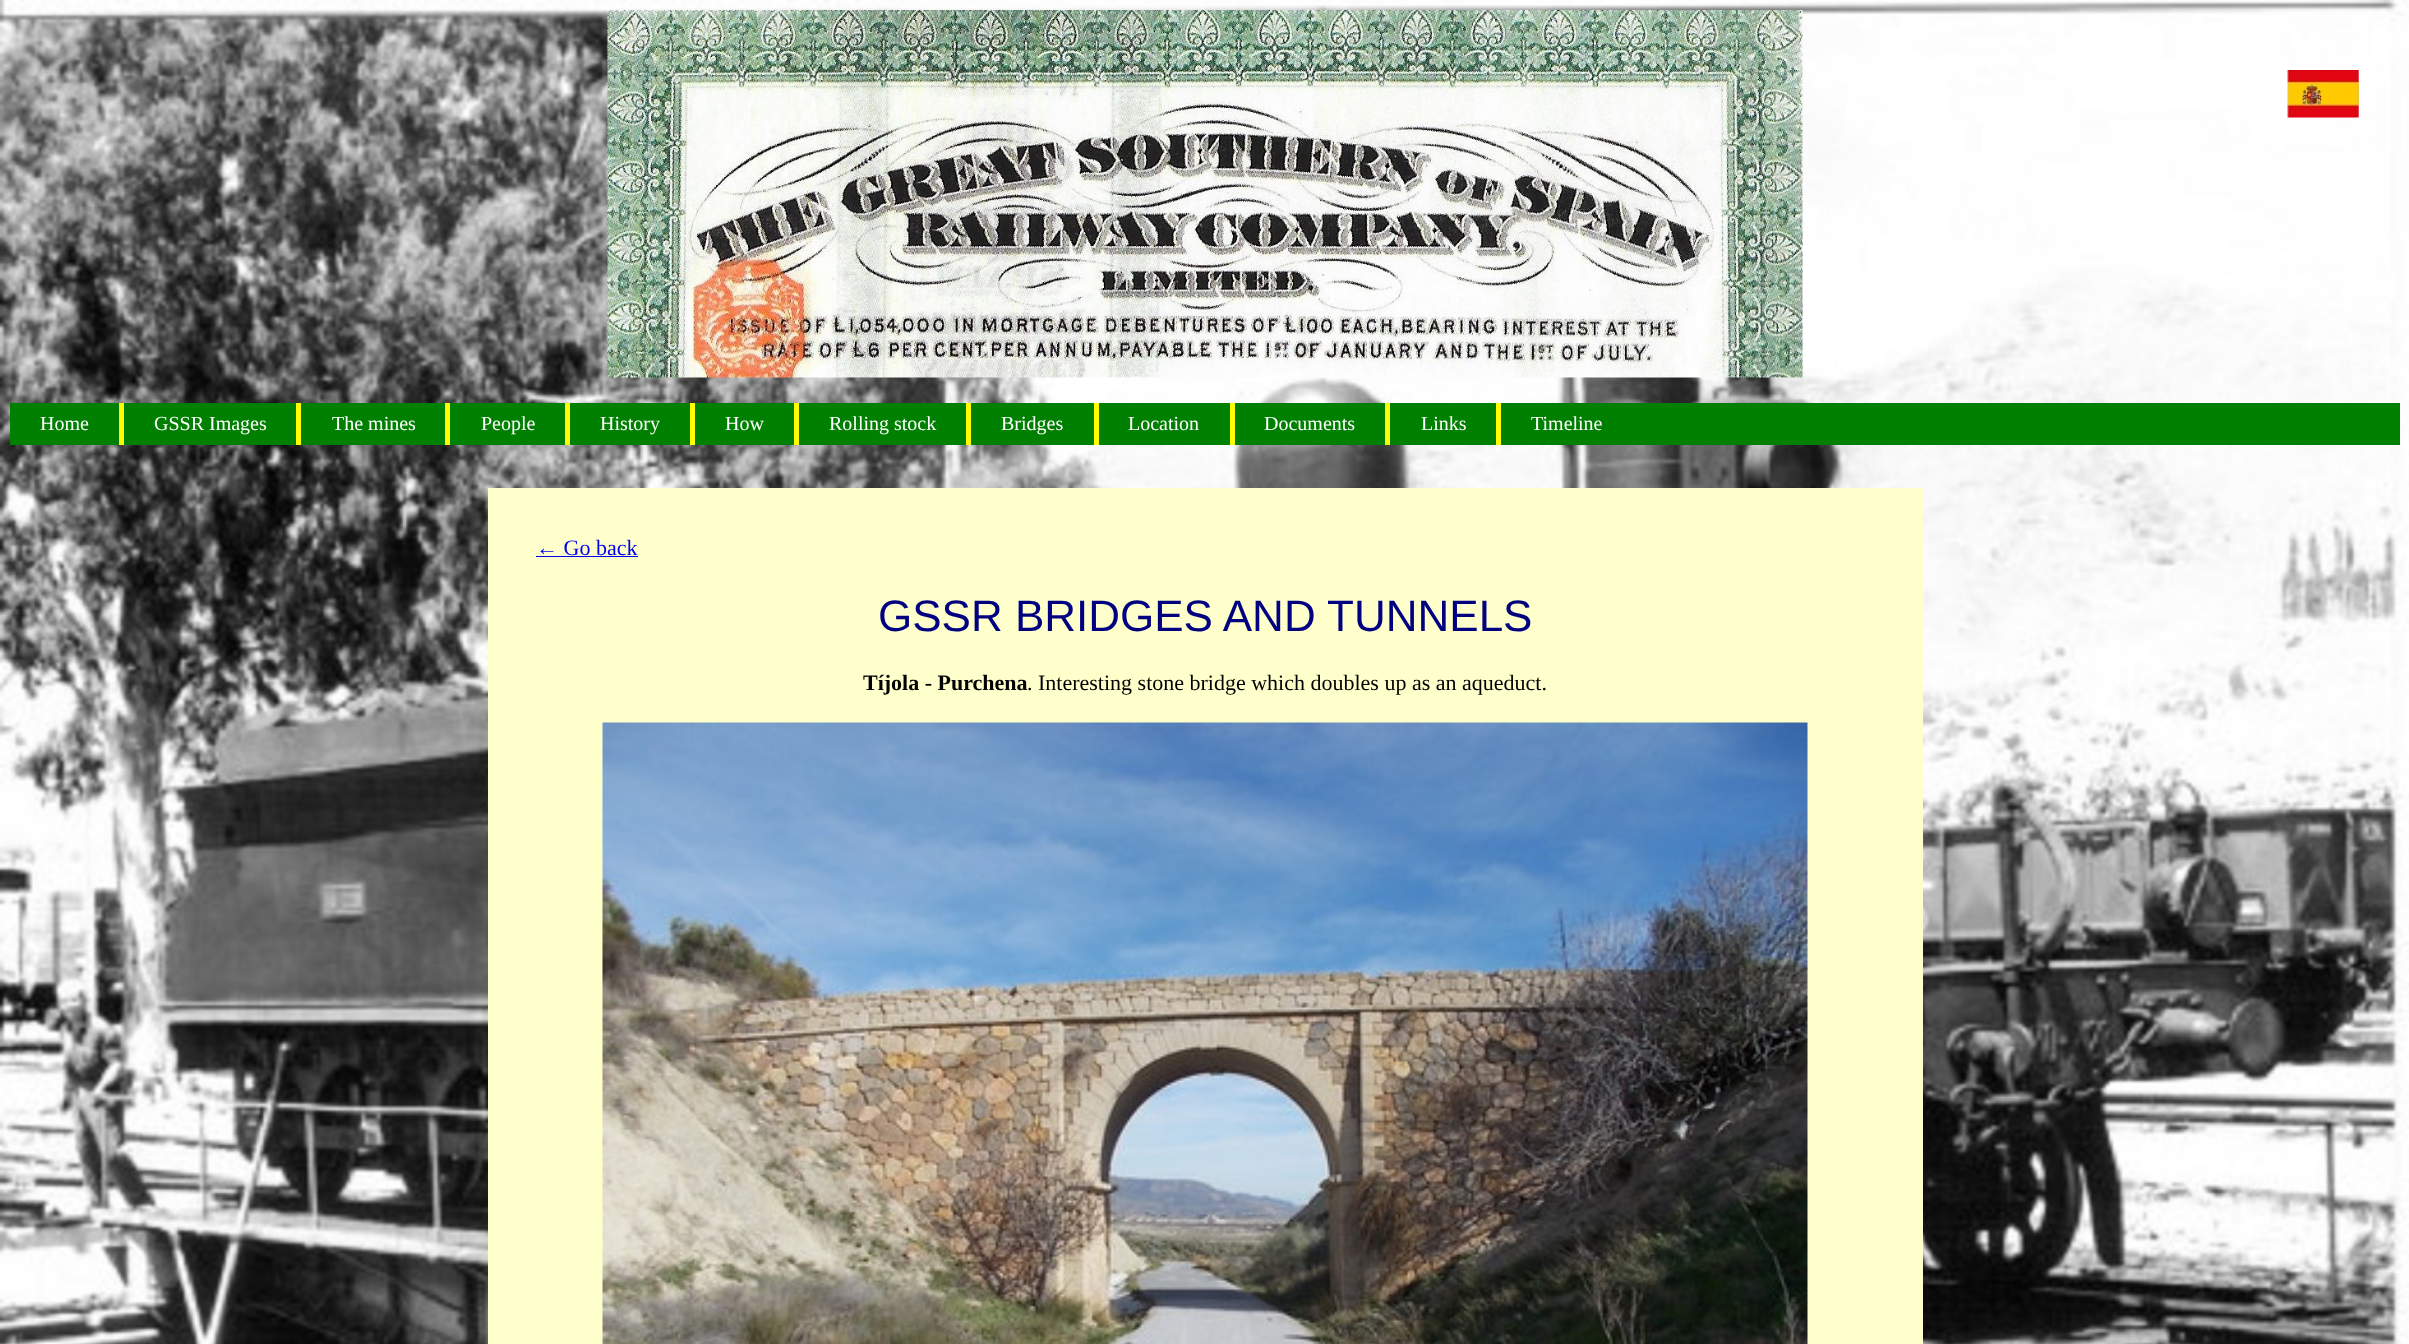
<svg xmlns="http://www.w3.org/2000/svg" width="2409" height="1344">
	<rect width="100%" height="100%" fill="#FFFFFF" />
	<image x="0" y="0" width="2409" height="1344" href="assets/img1.png" />
	<image x="607" y="10" width="1196" height="368" href="assets/img2.png" />
	<image x="2287" y="70" width="72" height="48" href="assets/img3.png" />
	<rect x="10" y="403" width="2390" height="42" fill="#008000" />
	<rect x="119" y="403" width="5" height="42" fill="#FFFF00" />
	<text x="40" y="430" font-family="Liberation Serif" font-size="20" fill="#FFFFFF">Home</text>
	<rect x="296" y="403" width="5" height="42" fill="#FFFF00" />
	<text x="154" y="430" font-family="Liberation Serif" font-size="20" fill="#FFFFFF">GSSR Images</text>
	<rect x="445" y="403" width="5" height="42" fill="#FFFF00" />
	<text x="332" y="430" font-family="Liberation Serif" font-size="20" fill="#FFFFFF">The mines</text>
	<rect x="565" y="403" width="5" height="42" fill="#FFFF00" />
	<text x="481" y="430" font-family="Liberation Serif" font-size="20" fill="#FFFFFF">People</text>
	<rect x="690" y="403" width="5" height="42" fill="#FFFF00" />
	<text x="600" y="430" font-family="Liberation Serif" font-size="20" fill="#FFFFFF">History</text>
	<rect x="794" y="403" width="5" height="42" fill="#FFFF00" />
	<text x="725" y="430" font-family="Liberation Serif" font-size="20" fill="#FFFFFF">How</text>
	<rect x="966" y="403" width="5" height="42" fill="#FFFF00" />
	<text x="829" y="430" font-family="Liberation Serif" font-size="20" fill="#FFFFFF">Rolling stock</text>
	<rect x="1094" y="403" width="5" height="42" fill="#FFFF00" />
	<text x="1001" y="430" font-family="Liberation Serif" font-size="20" fill="#FFFFFF">Bridges</text>
	<rect x="1230" y="403" width="5" height="42" fill="#FFFF00" />
	<text x="1128" y="430" font-family="Liberation Serif" font-size="20" fill="#FFFFFF">Location</text>
	<rect x="1385" y="403" width="5" height="42" fill="#FFFF00" />
	<text x="1264" y="430" font-family="Liberation Serif" font-size="20" fill="#FFFFFF">Documents</text>
	<rect x="1496" y="403" width="5" height="42" fill="#FFFF00" />
	<g font-family="Liberation Serif" font-size="20" fill="#FFFFFF">
		<text x="1421" y="430">Links</text>
		<text x="1531" y="430">Timeline</text>
	</g>
	<rect x="488" y="488" width="1435" height="856" fill="#FFFFCC" />
	<text x="536" y="555" font-family="Liberation Serif" font-size="22" fill="#0000EE">← Go back</text>
	<rect x="536" y="556" width="102" height="1" fill="#0000EE" />
	<text x="878" y="631" font-family="Liberation Sans" font-size="44" fill="#000080">GSSR BRIDGES AND TUNNELS</text>
	<text x="863" y="690" font-family="Liberation Serif" font-size="22" font-weight="700" fill="#000000">Tíjola - Purchena</text>
	<text x="1027" y="690" font-family="Liberation Serif" font-size="22" fill="#000000">. Interesting stone bridge which doubles up as an aqueduct.</text>
	<image x="602" y="722" width="1206" height="622" href="assets/img4.png" />
</svg>
